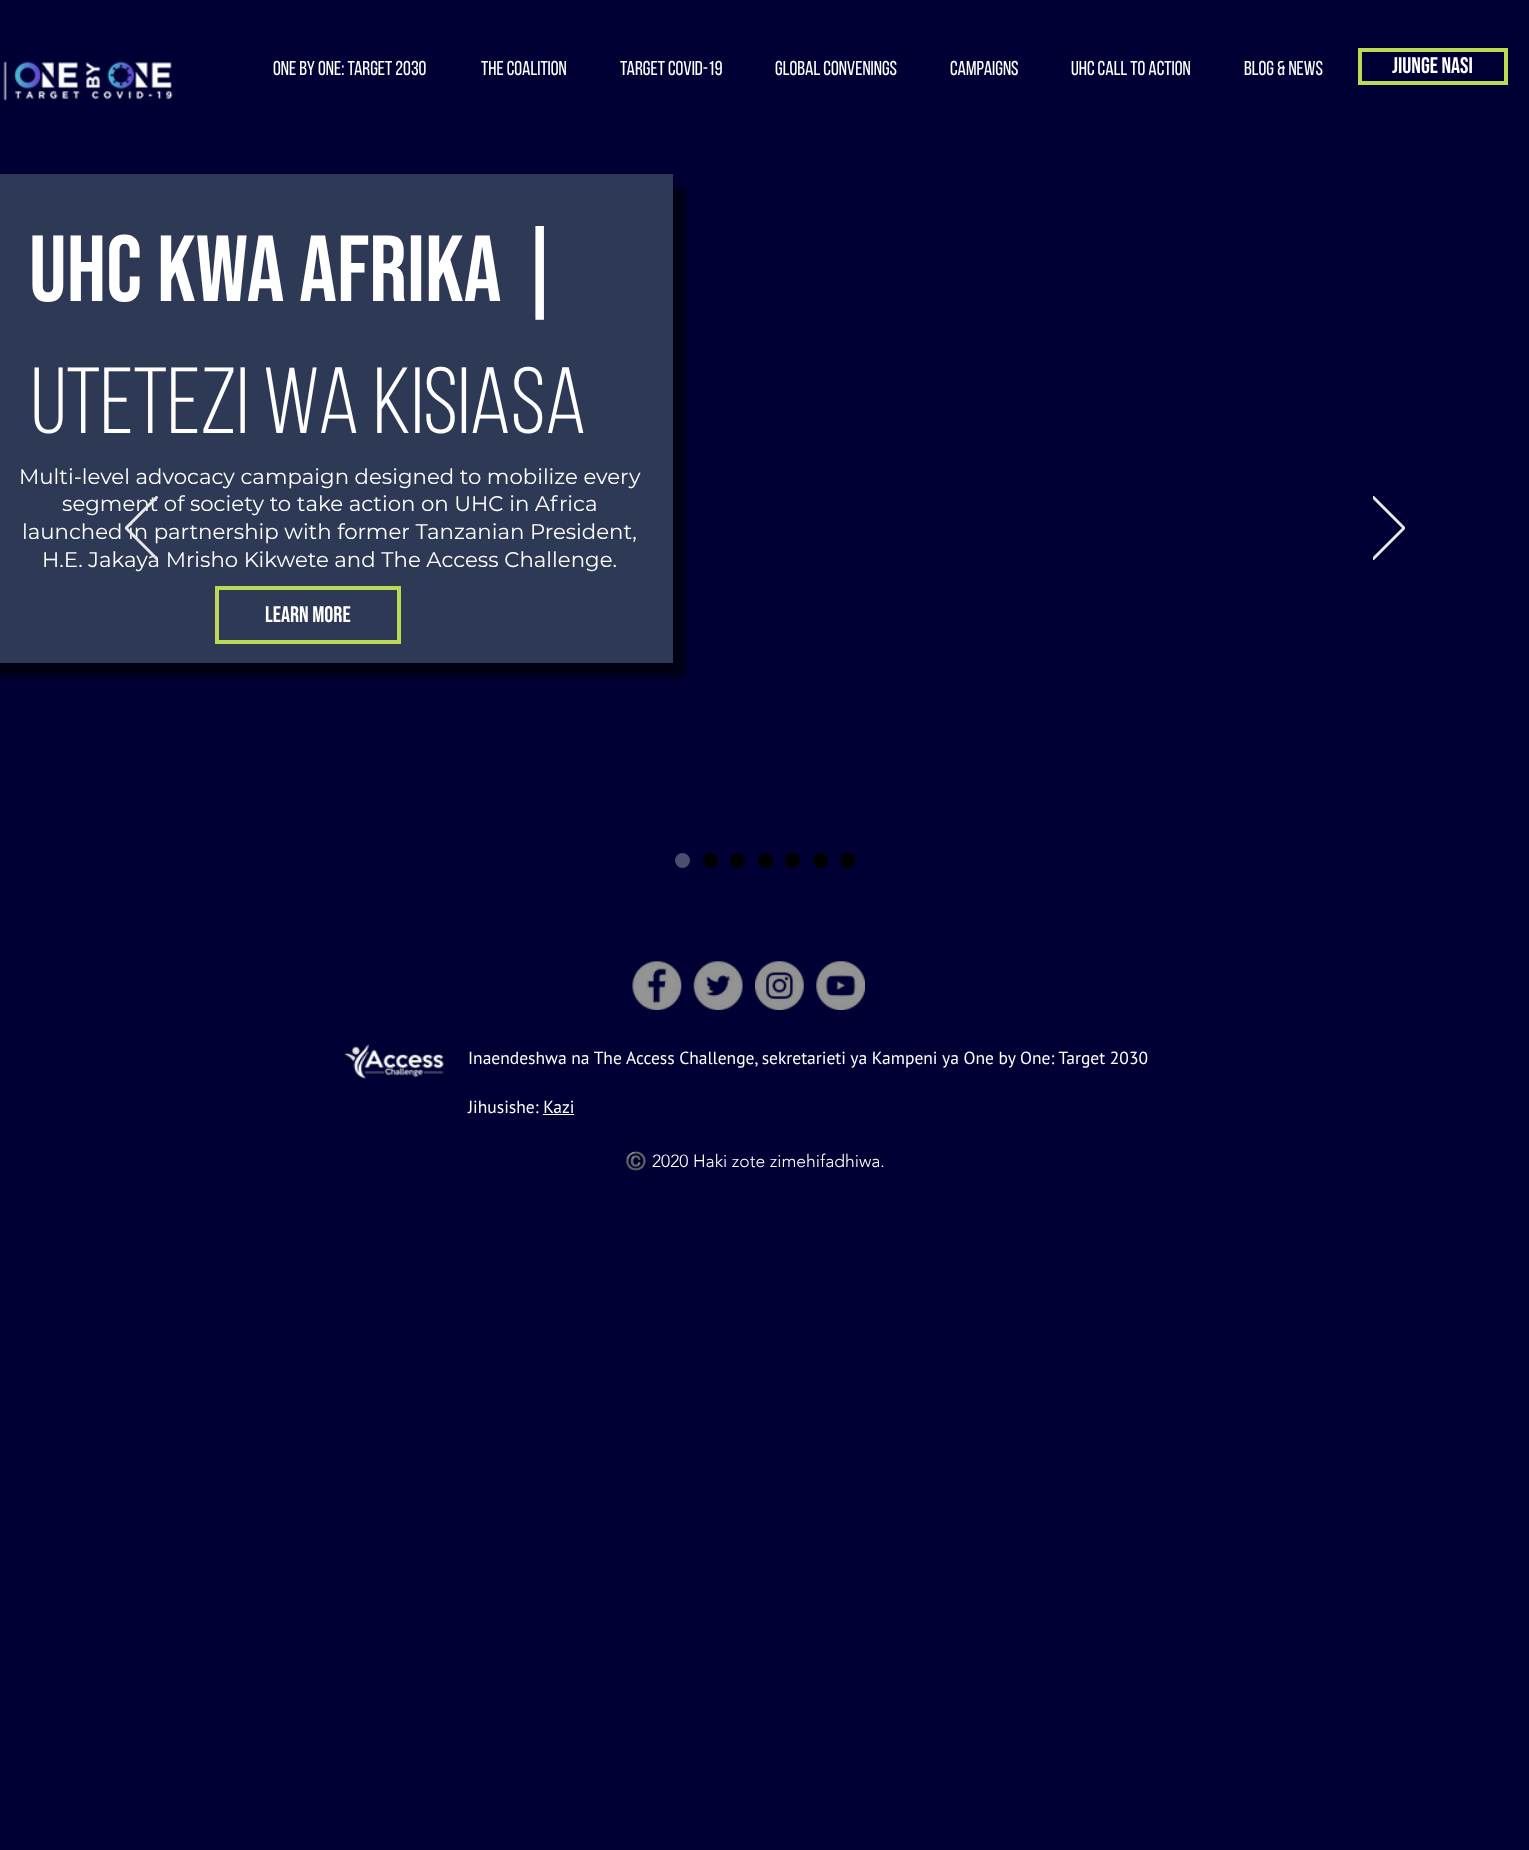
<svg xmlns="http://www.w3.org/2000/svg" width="1529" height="1850">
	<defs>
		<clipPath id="clip1"><path d="M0 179H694V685H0ZM-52 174H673V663H-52Z" clip-rule="evenodd" /></clipPath>
		<clipPath id="clip2"><rect x="125" y="496" width="33" height="64" /></clipPath>
		<clipPath id="clip3"><rect x="1373" y="496" width="32" height="64" /></clipPath>
	</defs>
	<rect width="100%" height="100%" fill="#000034" />
	<image x="3" y="61" width="170" height="40" href="assets/img1.png" />
	<g font-family="'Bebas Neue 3'" font-size="20" fill="#FFFFFF">
		<text x="273" y="75">One by One: Target 2030</text>
		<text x="481" y="75">The Coalition</text>
		<text x="620" y="75">Target COVID-19</text>
		<text x="775" y="75">Global Convenings</text>
		<text x="950" y="75">Campaigns</text>
		<text x="1071" y="75">UHC Call to Action</text>
		<text x="1244" y="75">Blog &amp; News</text>
	</g>
	<rect x="1360" y="50" width="146" height="33" fill="none" stroke="#BADA55" stroke-width="4" />
	<text x="1392" y="73" font-family="Bebas Neue" font-size="22.5" fill="#FFFFFF">Jiunge nasi</text>
	<g clip-path="url(#clip1)">
		<rect x="-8" y="188" width="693" height="488" fill="#000000" fill-opacity="0.6" filter="blur(2.5px)" />
	</g>
	<rect x="0" y="174" width="673" height="489" fill="#39475E" fill-opacity="0.81" />
	<text x="29" y="301" font-family="Bebas Neue" font-size="93.75" fill="#FFFFFF">uhc kwa afrika |</text>
	<text x="31" y="433" font-family="'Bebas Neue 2'" font-size="93.75" fill="#FFFFFF">Utetezi wa kisiasa</text>
	<g font-family="Montserrat" font-size="21.25" fill="#FFFFFF">
		<text x="19" y="484">Multi-level advocacy campaign designed to mobilize every</text>
		<text x="62" y="511">segment of society to take action on UHC in Africa</text>
		<text x="22" y="539">launched in partnership with former Tanzanian President,</text>
		<text x="42" y="567">H.E. Jakaya Mrisho Kikwete and The Access Challenge.</text>
	</g>
	<rect x="217" y="588" width="182" height="54" fill="none" stroke="#BADA55" stroke-width="4" />
	<text x="265" y="622" font-family="Bebas Neue" font-size="22.5" fill="#FFFFFF">LEARN MORE</text>
	<g clip-path="url(#clip2)">
		<path d="M156.5 559.5L125 528L156.5 496.5L157.5 497.5L127 528L157.5 558.5Z" fill="none" stroke="#E8E6E6" stroke-width="1.5" />
	</g>
	<g clip-path="url(#clip3)">
		<path d="M1373.5 559.5L1405 528L1373.5 496.5L1372.5 497.5L1403 528L1372.5 558.5Z" fill="none" stroke="#E8E6E6" stroke-width="1.5" />
	</g>
	<circle cx="682.5" cy="860.5" r="7.5" fill="#4D4D71" />
	<circle cx="710.5" cy="860.5" r="7.5" fill="#000000" />
	<circle cx="737.5" cy="860.5" r="7.5" fill="#000000" />
	<circle cx="765.5" cy="860.5" r="7.5" fill="#000000" />
	<circle cx="792.5" cy="860.5" r="7.5" fill="#000000" />
	<circle cx="820.5" cy="860.5" r="7.5" fill="#000000" />
	<circle cx="847.5" cy="860.5" r="7.5" fill="#000000" />
	<image x="632" y="961" width="50" height="49" href="assets/img2.png" />
	<image x="693" y="961" width="50" height="49" href="assets/img3.png" />
	<image x="755" y="961" width="49" height="49" href="assets/img4.png" />
	<image x="816" y="961" width="49" height="49" href="assets/img5.png" />
	<image x="344" y="1044" width="100" height="35" href="assets/img6.png" />
	<g font-family="PT Sans" font-size="17.5" fill="#FFFFFF">
		<text x="468" y="1064">Inaendeshwa na The Access Challenge, sekretarieti ya Kampeni ya One by One: Target 2030</text>
		<text x="468" y="1113">Jihusishe: Kazi</text>
	</g>
	<rect x="543" y="1114" width="31" height="1" fill="#FFFFFF" />
	<text x="625" y="1167" font-family="Noto Color Emoji" font-size="17.5" fill="#FFFFFF">©️</text>
	<text x="652" y="1167" font-family="'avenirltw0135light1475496'" font-size="17.5" font-weight="300" fill="#FFFFFF">2020 Haki zote zimehifadhiwa.</text>
</svg>
